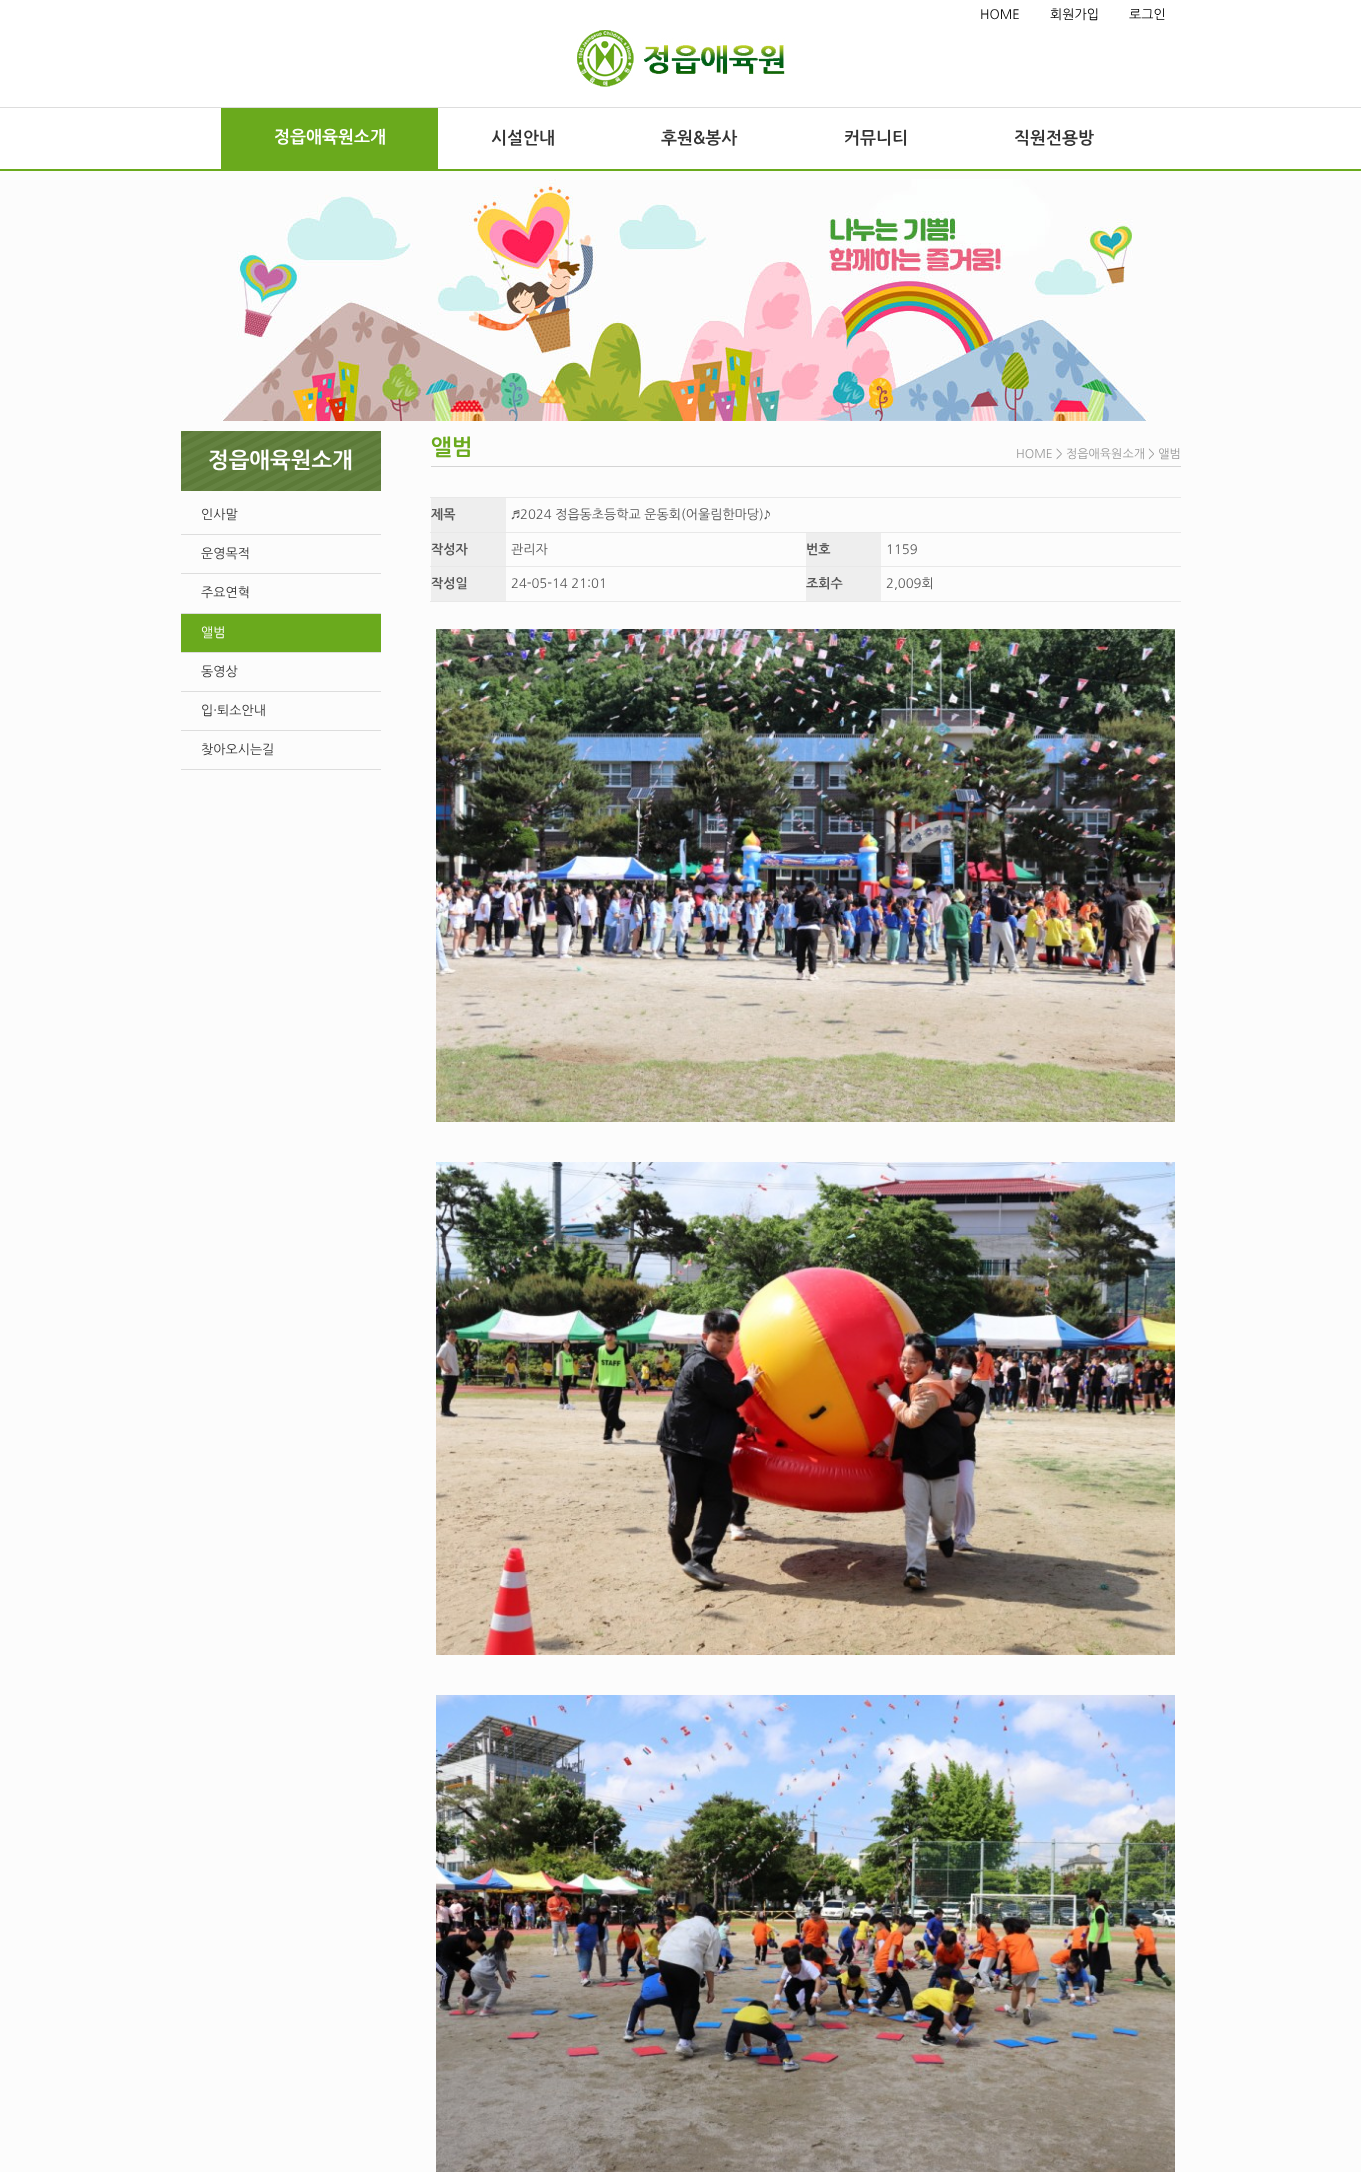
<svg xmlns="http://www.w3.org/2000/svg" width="1361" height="2172">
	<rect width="100%" height="100%" fill="#FFFFFF" />
	<g font-family="NanumGothic" font-size="13" fill="#000000">
		<text x="980" y="19">HOME</text>
		<text x="1050" y="19">회원가입</text>
		<text x="1129" y="19">로그인</text>
	</g>
	<rect x="0" y="107" width="1361" height="1" fill="#DDDDDD" />
	<rect x="0" y="169" width="1361" height="2" fill="#6AAA1D" />
	<image x="577" y="30" width="208" height="57" href="assets/img1.png" />
	<rect x="221" y="108" width="217" height="61" fill="#6AAA1D" />
	<text x="274" y="143" font-family="NanumGothic" font-size="17" font-weight="700" fill="#FFFFFF">정읍애육원소개</text>
	<g font-family="NanumGothic" font-size="17" font-weight="700" fill="#333333">
		<text x="491" y="144">시설안내</text>
		<text x="661" y="144">후원&amp;봉사</text>
		<text x="844" y="144">커뮤니티</text>
		<text x="1014" y="144">직원전용방</text>
	</g>
	<rect x="0" y="171" width="1361" height="2001" fill="#FCFCFC" />
	<image x="221" y="179" width="928" height="242" href="assets/img2.png" />
	<image x="181" y="431" width="200" height="60" href="assets/img3.png" />
	<text x="208" y="468" font-family="NanumGothic" font-size="22" font-weight="700" fill="#FFFFFF">정읍애육원소개</text>
	<rect x="181" y="534" width="200" height="1" fill="#DDDDDD" />
	<text x="201" y="519" font-family="NanumGothic" font-size="13" fill="#333333">인사말</text>
	<rect x="181" y="573" width="200" height="1" fill="#DDDDDD" />
	<text x="201" y="558" font-family="NanumGothic" font-size="13" fill="#333333">운영목적</text>
	<rect x="181" y="613" width="200" height="1" fill="#DDDDDD" />
	<text x="201" y="597" font-family="NanumGothic" font-size="13" fill="#333333">주요연혁</text>
	<rect x="181" y="614" width="200" height="38" fill="#6AAA1D" />
	<rect x="181" y="652" width="200" height="1" fill="#DDDDDD" />
	<text x="201" y="637" font-family="NanumGothic" font-size="13" fill="#FFFFFF">앨범</text>
	<rect x="181" y="691" width="200" height="1" fill="#DDDDDD" />
	<text x="201" y="676" font-family="NanumGothic" font-size="13" fill="#333333">동영상</text>
	<rect x="181" y="730" width="200" height="1" fill="#DDDDDD" />
	<text x="201" y="715" font-family="NanumGothic" font-size="13" fill="#333333">입·퇴소안내</text>
	<rect x="181" y="769" width="200" height="1" fill="#DDDDDD" />
	<text x="201" y="754" font-family="NanumGothic" font-size="13" fill="#333333">찾아오시는길</text>
	<rect x="431" y="466" width="750" height="1" fill="#D4D4D4" />
	<text x="431" y="455" font-family="NanumGothic" font-size="22" font-weight="700" fill="#6AAA1D">앨범</text>
	<text x="1016" y="458" font-family="NanumGothic" font-size="12" fill="#999999">HOME &gt; 정읍애육원소개 &gt; 앨범</text>
	<rect x="431" y="498" width="75" height="34" fill="#EEEEEE" />
	<text x="431" y="519" font-family="NanumGothic" font-size="13" font-weight="700" fill="#555555">제목</text>
	<rect x="430" y="497" width="751" height="1" fill="#E8E8E8" />
	<text x="511" y="519" font-family="NanumGothic" font-size="13" fill="#555555">♬2024 정읍동초등학교 운동회(어울림한마당)♪</text>
	<rect x="431" y="533" width="75" height="33" fill="#EEEEEE" />
	<text x="431" y="554" font-family="NanumGothic" font-size="13" font-weight="700" fill="#555555">작성자</text>
	<text x="511" y="554" font-family="NanumGothic" font-size="13" fill="#555555">관리자</text>
	<rect x="806" y="533" width="75" height="33" fill="#EEEEEE" />
	<text x="806" y="554" font-family="NanumGothic" font-size="13" font-weight="700" fill="#555555">번호</text>
	<rect x="430" y="532" width="751" height="1" fill="#E8E8E8" />
	<text x="886" y="554" font-family="NanumGothic" font-size="13" fill="#555555">1159</text>
	<rect x="431" y="567" width="75" height="34" fill="#EEEEEE" />
	<text x="431" y="588" font-family="NanumGothic" font-size="13" font-weight="700" fill="#555555">작성일</text>
	<text x="511" y="588" font-family="NanumGothic" font-size="13" fill="#555555">24-05-14 21:01</text>
	<rect x="806" y="567" width="75" height="34" fill="#EEEEEE" />
	<text x="806" y="588" font-family="NanumGothic" font-size="13" font-weight="700" fill="#555555">조회수</text>
	<rect x="430" y="566" width="751" height="1" fill="#E8E8E8" />
	<text x="886" y="588" font-family="NanumGothic" font-size="13" fill="#555555">2,009회</text>
	<rect x="430" y="601" width="751" height="1" fill="#E8E8E8" />
	<image x="436" y="629" width="739" height="493" href="assets/img4.png" />
	<image x="436" y="1162" width="739" height="493" href="assets/img5.png" />
	<image x="436" y="1695" width="739" height="477" href="assets/img6.png" />
</svg>
